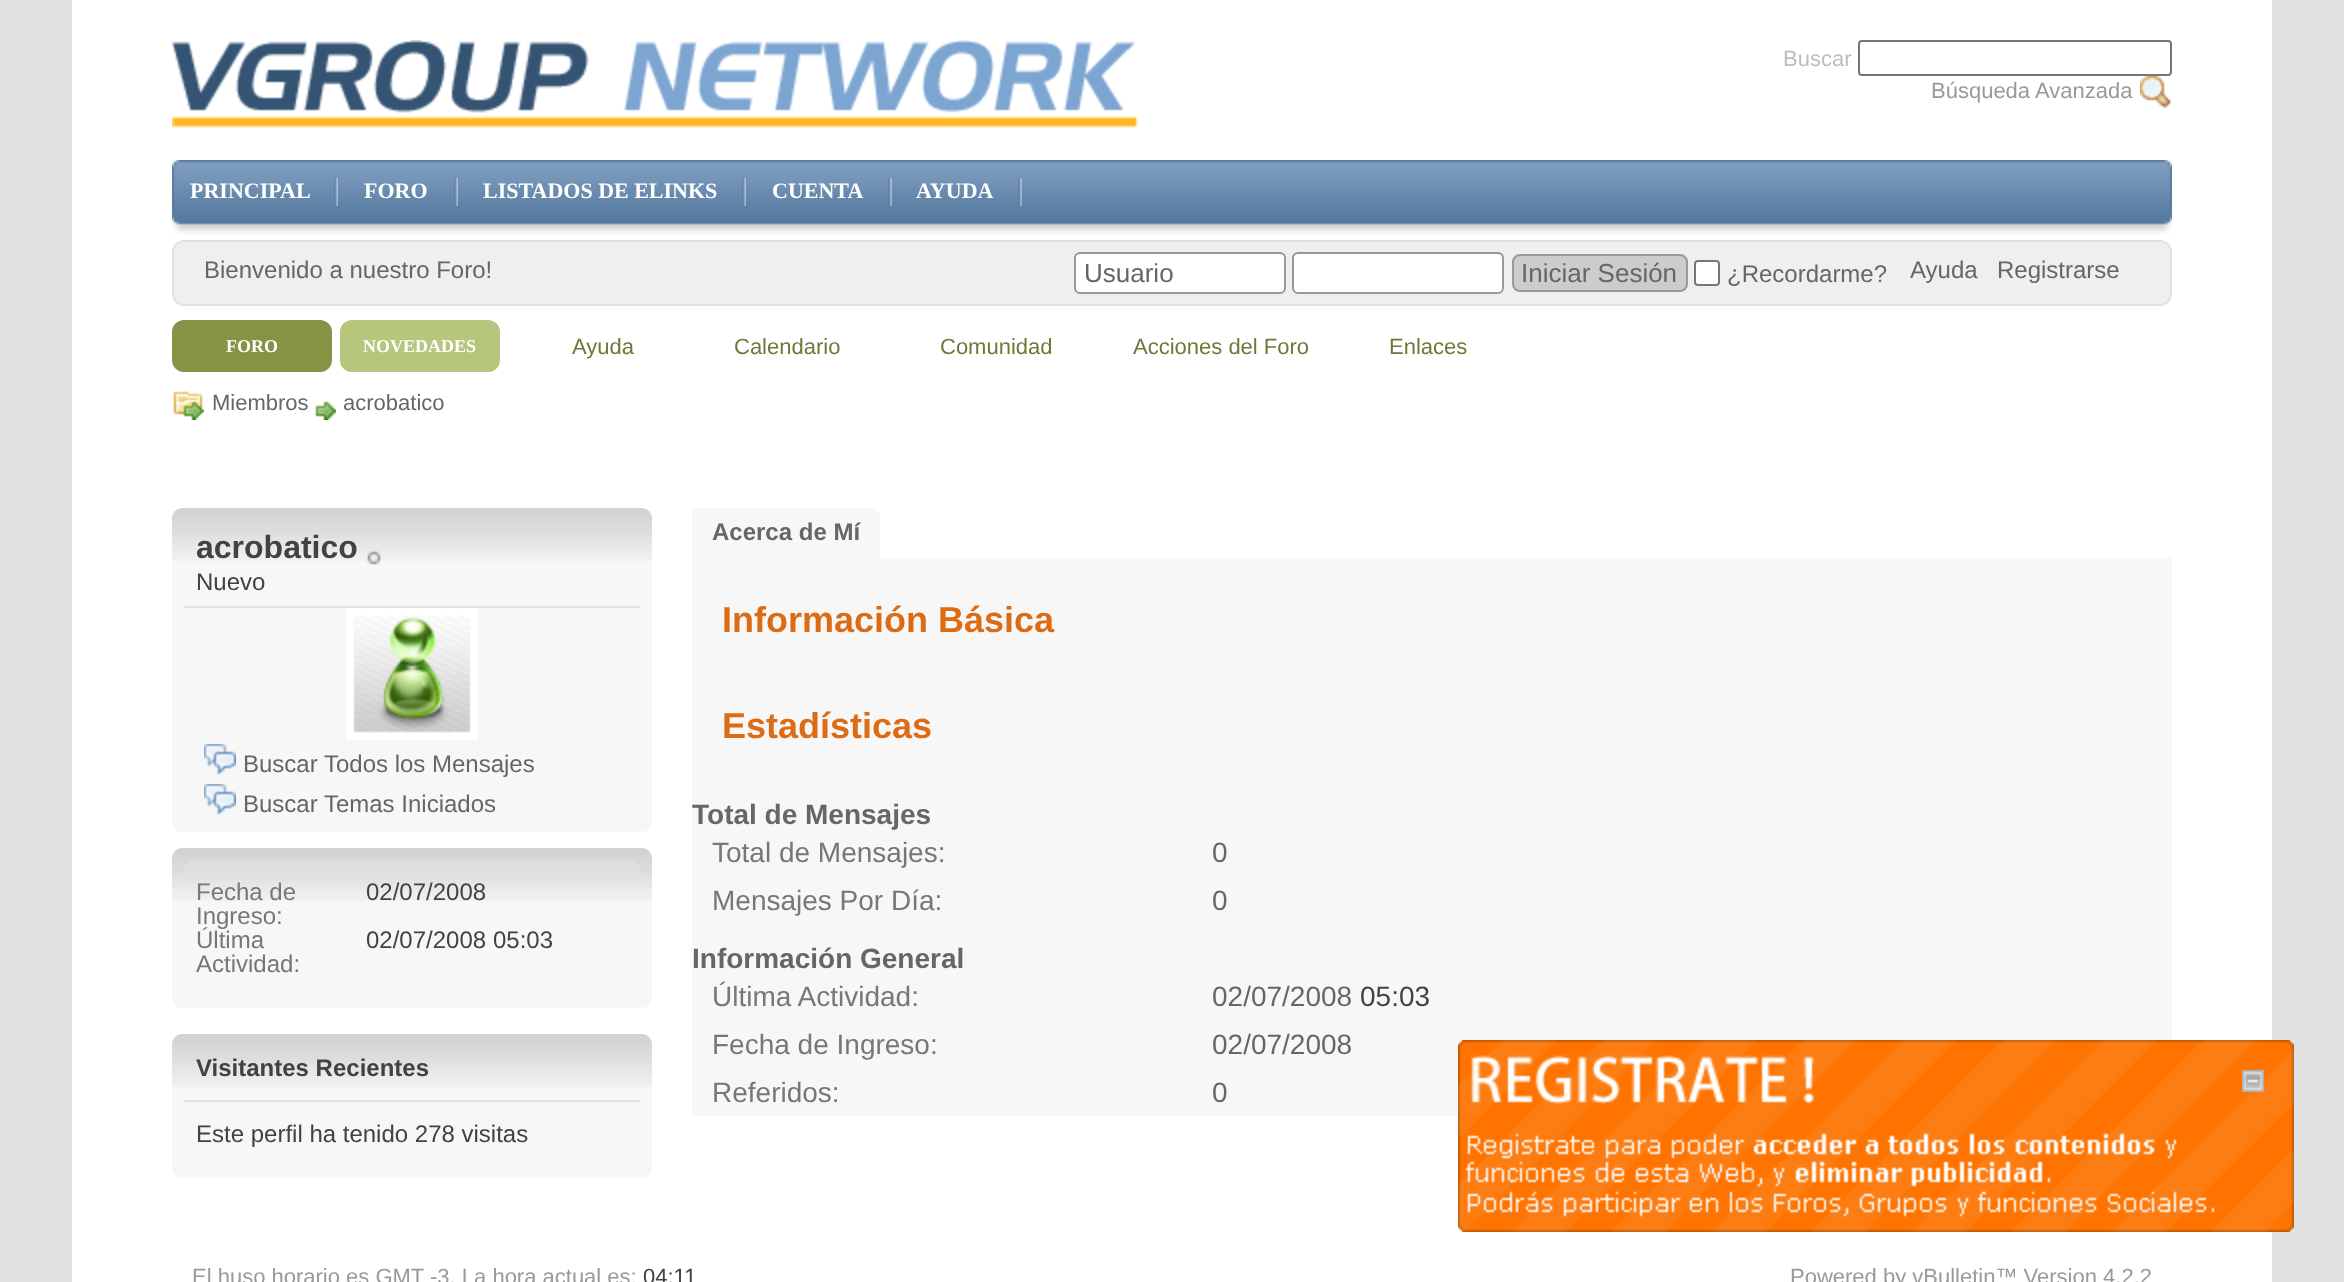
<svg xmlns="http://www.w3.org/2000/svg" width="2344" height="1282">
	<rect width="100%" height="100%" fill="#E1E1E1" />
	<rect x="72" y="0" width="2200" height="1282" fill="#FFFFFF" />
	<image x="172" y="40" width="966" height="88" href="assets/img1.png" />
	<text x="1783" y="66" font-family="Liberation Sans" font-size="22" fill="#BCBCBC">Buscar</text>
	<rect x="1859" y="41" width="312" height="34" rx="3" fill="none" stroke="#767676" stroke-width="2" />
	<image x="2140" y="76" width="32" height="32" href="assets/img2.png" />
	<text x="1931" y="98" font-family="Liberation Sans" font-size="22" fill="#999999">Búsqueda Avanzada</text>
	<image x="172" y="160" width="2000" height="75" href="assets/img3.png" />
	<text x="190" y="198" font-family="Liberation Serif" font-size="22" font-weight="700" fill="#FFFFFF">PRINCIPAL</text>
	<image x="334" y="178" width="4" height="28" href="assets/img4.png" />
	<text x="364" y="198" font-family="Liberation Serif" font-size="22" font-weight="700" fill="#FFFFFF">FORO</text>
	<image x="454" y="178" width="4" height="28" href="assets/img4.png" />
	<text x="483" y="198" font-family="Liberation Serif" font-size="22" font-weight="700" fill="#FFFFFF">LISTADOS DE ELINKS</text>
	<image x="742" y="178" width="4" height="28" href="assets/img4.png" />
	<text x="772" y="198" font-family="Liberation Serif" font-size="22" font-weight="700" fill="#FFFFFF">CUENTA</text>
	<image x="888" y="178" width="4" height="28" href="assets/img4.png" />
	<text x="916" y="198" font-family="Liberation Serif" font-size="22" font-weight="700" fill="#FFFFFF">AYUDA</text>
	<image x="1018" y="178" width="4" height="28" href="assets/img4.png" />
	<rect x="173" y="241" width="1998" height="64" rx="11" fill="#EFEFEF" stroke="#E1E1E1" stroke-width="2" />
	<text x="204" y="278" font-family="Liberation Sans" font-size="24" fill="#666666">Bienvenido a nuestro Foro!</text>
	<rect x="1075" y="253" width="210" height="40" rx="5" fill="#FFFFFF" stroke="#999999" stroke-width="2" />
	<text x="1084" y="282" font-family="Liberation Sans" font-size="26" fill="#666666">Usuario</text>
	<rect x="1293" y="253" width="210" height="40" rx="5" fill="#FFFFFF" stroke="#999999" stroke-width="2" />
	<rect x="1513" y="255" width="174" height="36" rx="7" fill="#CCCCCC" stroke="#999999" stroke-width="2" />
	<text x="1521" y="282" font-family="Liberation Sans" font-size="26" fill="#666666">Iniciar Sesión</text>
	<rect x="1695" y="261" width="24" height="24" rx="3" fill="#FFFFFF" stroke="#767676" stroke-width="2" />
	<g font-family="Liberation Sans" font-size="24" fill="#666666">
		<text x="1727" y="282">¿Recordarme?</text>
		<text x="1910" y="278">Ayuda</text>
		<text x="1997" y="278">Registrarse</text>
	</g>
	<rect x="172" y="320" width="160" height="52" rx="12" fill="#849444" />
	<text x="226" y="352" font-family="Liberation Serif" font-size="18" font-weight="700" fill="#FFFFFF">FORO</text>
	<g font-family="Liberation Sans" font-size="22" fill="#6C7939">
		<text x="572" y="354">Ayuda</text>
		<text x="734" y="354">Calendario</text>
		<text x="940" y="354">Comunidad</text>
		<text x="1133" y="354">Acciones del Foro</text>
		<text x="1389" y="354">Enlaces</text>
	</g>
	<rect x="340" y="320" width="160" height="52" rx="12" fill="#B7C67D" />
	<text x="363" y="352" font-family="Liberation Serif" font-size="18" font-weight="700" fill="#FFFFFF">NOVEDADES</text>
	<image x="173" y="391" width="31" height="29" href="assets/img5.png" />
	<image x="315" y="401" width="21" height="19" href="assets/img6.png" />
	<g font-family="Liberation Sans" font-size="22" fill="#666666">
		<text x="212" y="410">Miembros</text>
		<text x="343" y="410">acrobatico</text>
	</g>
	<rect x="172" y="508" width="480" height="324" rx="10" fill="#F7F7F7" />
	<image x="172" y="508" width="480" height="53" href="assets/img7.png" />
	<rect x="184" y="606" width="456" height="2" fill="#E1E1E1" />
	<text x="196" y="558" font-family="Liberation Sans" font-size="32" font-weight="700" fill="#424242">acrobatico</text>
	<image x="367" y="551" width="14" height="14" href="assets/img8.png" />
	<text x="196" y="590" font-family="Liberation Sans" font-size="24" fill="#424242">Nuevo</text>
	<rect x="349" y="611" width="126" height="126" fill="none" stroke="#FFFFFF" stroke-width="6" />
	<image x="352" y="614" width="120" height="120" href="assets/img9.png" />
	<image x="204" y="744" width="32" height="31" href="assets/img10.png" />
	<text x="243" y="772" font-family="Liberation Sans" font-size="24" fill="#666666">Buscar Todos los Mensajes</text>
	<image x="204" y="784" width="32" height="31" href="assets/img10.png" />
	<text x="243" y="812" font-family="Liberation Sans" font-size="24" fill="#666666">Buscar Temas Iniciados</text>
	<rect x="172" y="848" width="480" height="160" rx="10" fill="#F7F7F7" />
	<image x="172" y="848" width="480" height="53" href="assets/img11.png" />
	<image x="184" y="860" width="456" height="15" href="assets/img12.png" />
	<g font-family="Liberation Sans" font-size="24" fill="#777777">
		<text x="196" y="900">Fecha de</text>
		<text x="196" y="924">Ingreso:</text>
	</g>
	<text x="366" y="900" font-family="Liberation Sans" font-size="24" fill="#424242">02/07/2008</text>
	<g font-family="Liberation Sans" font-size="24" fill="#777777">
		<text x="196" y="948">Última</text>
		<text x="196" y="972">Actividad:</text>
	</g>
	<g font-family="Liberation Sans" font-size="24" fill="#424242">
		<text x="366" y="948">02/07/2008</text>
		<text x="493" y="948">05:03</text>
	</g>
	<rect x="172" y="1034" width="480" height="144" rx="10" fill="#F7F7F7" />
	<image x="172" y="1034" width="480" height="53" href="assets/img11.png" />
	<rect x="184" y="1100" width="456" height="2" fill="#E1E1E1" />
	<text x="196" y="1076" font-family="Liberation Sans" font-size="24" font-weight="700" fill="#424242">Visitantes Recientes</text>
	<text x="196" y="1142" font-family="Liberation Sans" font-size="24" fill="#424242">Este perfil ha tenido 278 visitas</text>
	<path d="M692 508H870C875.5 508 880 512.5 880 518V558H692Z" fill="#F7F7F7" />
	<text x="712" y="540" font-family="Liberation Sans" font-size="24" font-weight="700" fill="#666666">Acerca de Mí</text>
	<rect x="692" y="558" width="1480" height="558" fill="#F7F7F7" />
	<g font-family="Liberation Sans" font-size="36" font-weight="700" fill="#DD6B13">
		<text x="722" y="632">Información Básica</text>
		<text x="722" y="738">Estadísticas</text>
	</g>
	<text x="692" y="824" font-family="Liberation Sans" font-size="28" font-weight="700" fill="#666666">Total de Mensajes</text>
	<text x="712" y="862" font-family="Liberation Sans" font-size="28" fill="#777777">Total de Mensajes:</text>
	<text x="1212" y="862" font-family="Liberation Sans" font-size="28" fill="#666666">0</text>
	<text x="712" y="910" font-family="Liberation Sans" font-size="28" fill="#777777">Mensajes Por Día:</text>
	<text x="1212" y="910" font-family="Liberation Sans" font-size="28" fill="#666666">0</text>
	<text x="692" y="968" font-family="Liberation Sans" font-size="28" font-weight="700" fill="#666666">Información General</text>
	<text x="712" y="1006" font-family="Liberation Sans" font-size="28" fill="#777777">Última Actividad:</text>
	<text x="1212" y="1006" font-family="Liberation Sans" font-size="28" fill="#666666">02/07/2008</text>
	<text x="1360" y="1006" font-family="Liberation Sans" font-size="28" fill="#424242">05:03</text>
	<text x="712" y="1054" font-family="Liberation Sans" font-size="28" fill="#777777">Fecha de Ingreso:</text>
	<text x="1212" y="1054" font-family="Liberation Sans" font-size="28" fill="#666666">02/07/2008</text>
	<text x="712" y="1102" font-family="Liberation Sans" font-size="28" fill="#777777">Referidos:</text>
	<text x="1212" y="1102" font-family="Liberation Sans" font-size="28" fill="#666666">0</text>
	<image x="1458" y="1040" width="836" height="192" href="assets/img13.png" />
	<image x="2242" y="1070" width="22" height="22" href="assets/img14.png" />
	<text x="192" y="1284" font-family="Liberation Sans" font-size="22" fill="#999999">El huso horario es GMT -3. La hora actual es:</text>
	<text x="643" y="1284" font-family="Liberation Sans" font-size="22" fill="#424242">04:11</text>
	<text x="1790" y="1284" font-family="Liberation Sans" font-size="22" fill="#999999">Powered by vBulletin™ Version 4.2.2</text>
</svg>
